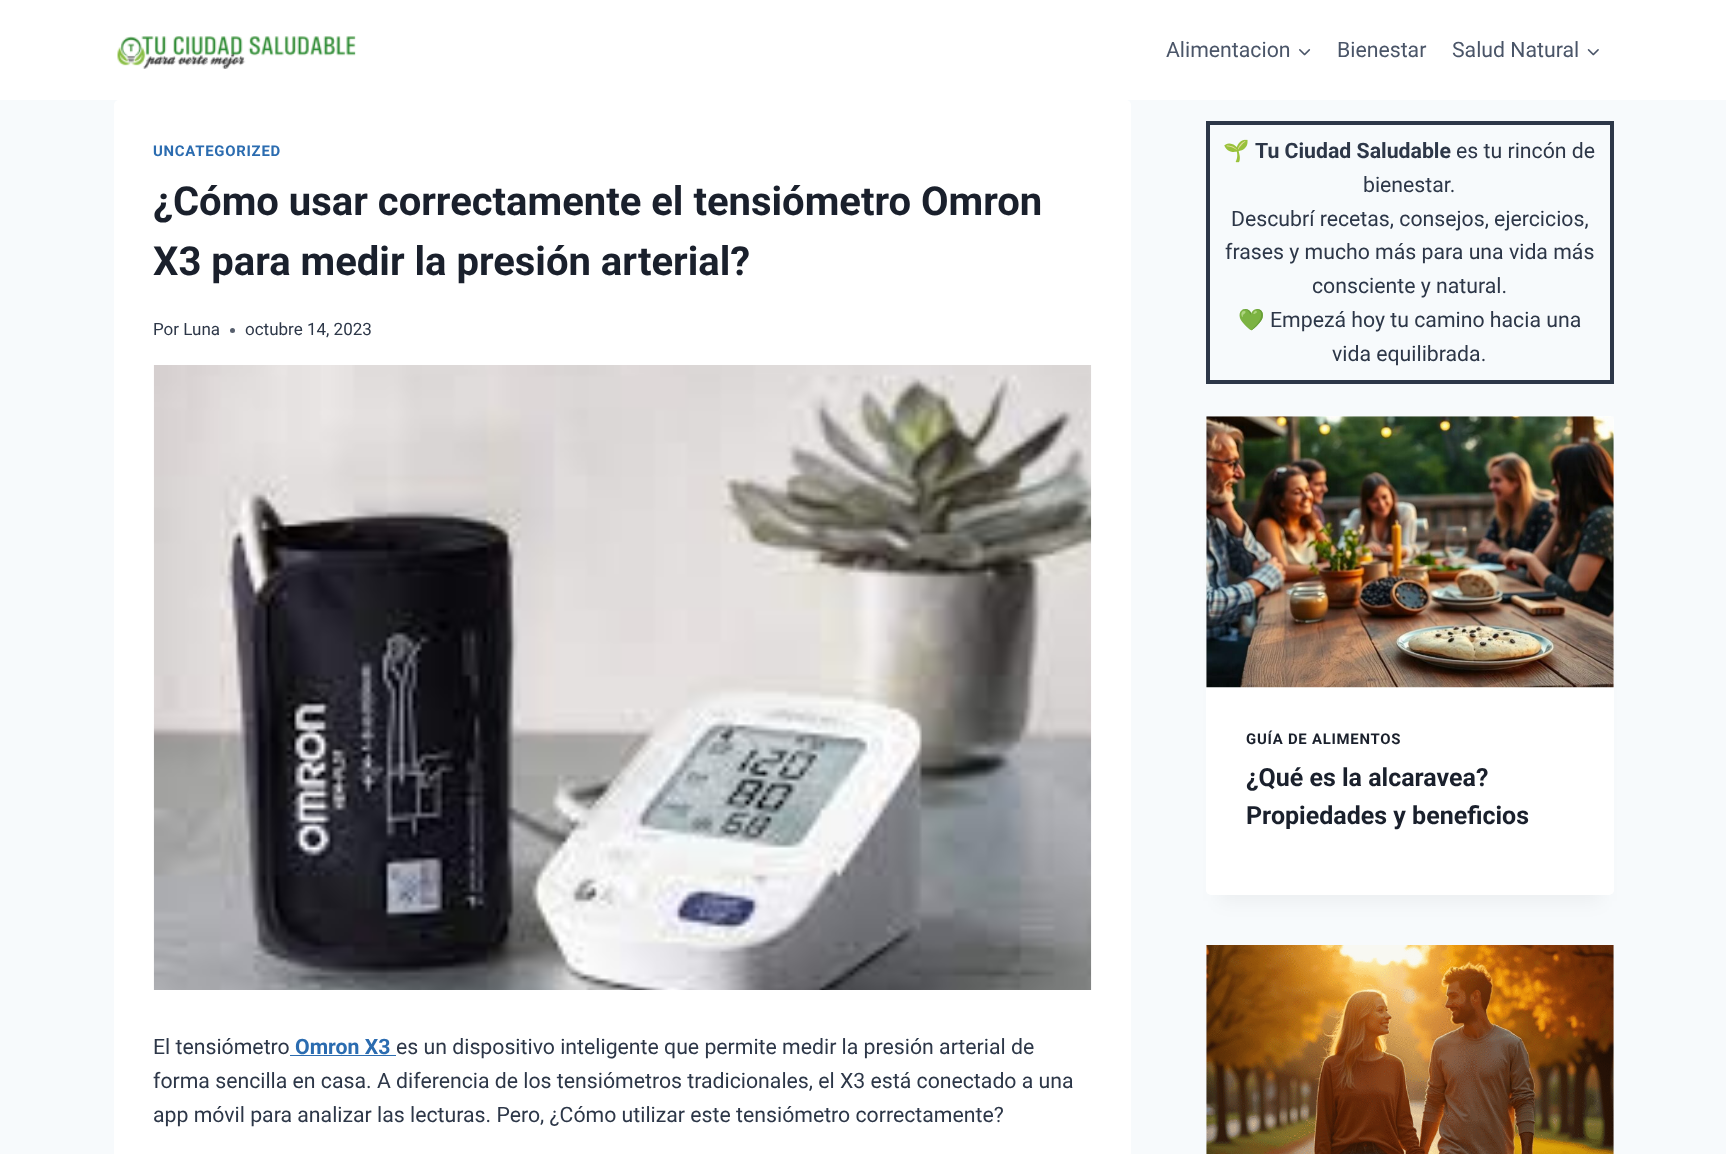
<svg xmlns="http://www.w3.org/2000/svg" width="1726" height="1154">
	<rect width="100%" height="100%" fill="#F7FAFC" />
	<rect x="0" y="0" width="1726" height="100" fill="#FFFFFF" />
	<image x="117" y="36" width="239" height="33" href="assets/img1.png" />
	<text x="1166" y="57" font-family="Roboto" font-size="21.25" fill="#4A5568">Alimentacion</text>
	<image x="1299" y="49" width="12" height="7" href="assets/img2.png" />
	<g font-family="Roboto" font-size="21.25" fill="#4A5568">
		<text x="1337" y="57">Bienestar</text>
		<text x="1452" y="57">Salud Natural</text>
	</g>
	<image x="1587" y="49" width="12" height="7" href="assets/img3.png" />
	<rect x="114" y="100" width="1017" height="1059" rx="5" fill="#FFFFFF" />
	<text x="153" y="156" font-family="Roboto" font-size="14.9" font-weight="700" letter-spacing="0.75" fill="#2B6CB0">UNCATEGORIZED</text>
	<g font-family="Roboto" font-size="40" font-weight="700" fill="#1A202C">
		<text x="153" y="215">¿Cómo usar correctamente el tensiómetro Omron</text>
		<text x="153" y="275">X3 para medir la presión arterial?</text>
	</g>
	<text x="153" y="335" font-family="Roboto" font-size="17" fill="#2D3748">Por Luna</text>
	<circle cx="232.5" cy="330.5" r="2.5" fill="#575F6D" />
	<text x="245" y="335" font-family="Roboto" font-size="17" fill="#2D3748">octubre 14, 2023</text>
	<image x="153" y="365" width="939" height="625" href="assets/img4.png" />
	<text x="153" y="1054" font-family="Roboto" font-size="21.25" fill="#2D3748">El tensiómetro</text>
	<text x="295" y="1054" font-family="Roboto" font-size="21.25" font-weight="700" fill="#2B6CB0">Omron X3</text>
	<rect x="290" y="1055" width="106" height="1" fill="#2B6CB0" />
	<g font-family="Roboto" font-size="21.25" fill="#2D3748">
		<text x="396" y="1054">es un dispositivo inteligente que permite medir la presión arterial de</text>
		<text x="153" y="1088">forma sencilla en casa. A diferencia de los tensiómetros tradicionales, el X3 está conectado a una</text>
		<text x="153" y="1122">app móvil para analizar las lecturas. Pero, ¿Cómo utilizar este tensiómetro correctamente?</text>
	</g>
	<rect x="1208" y="123" width="404" height="259" fill="none" stroke="#2D3748" stroke-width="4" />
	<text x="1223" y="158" font-family="Noto Color Emoji" font-size="21.25" fill="#2D3748">🌱</text>
	<text x="1255" y="158" font-family="Roboto" font-size="21.25" font-weight="700" fill="#2D3748">Tu Ciudad Saludable</text>
	<g font-family="Roboto" font-size="21.25" fill="#2D3748">
		<text x="1456" y="158">es tu rincón de</text>
		<text x="1363" y="192">bienestar.</text>
		<text x="1231" y="226">Descubrí recetas, consejos, ejercicios,</text>
		<text x="1225" y="259">frases y mucho más para una vida más</text>
		<text x="1312" y="293">consciente y natural.</text>
	</g>
	<text x="1238" y="327" font-family="Noto Color Emoji" font-size="21.25" fill="#2D3748">💚</text>
	<g font-family="Roboto" font-size="21.25" fill="#2D3748">
		<text x="1270" y="327">Empezá hoy tu camino hacia una</text>
		<text x="1332" y="361">vida equilibrada.</text>
	</g>
	<rect x="1219" y="448" width="382" height="453" fill="#000000" fill-opacity="0.05" filter="blur(9.5px)" />
	<rect x="1206" y="416" width="408" height="479" rx="5" fill="#FFFFFF" />
	<image x="1206" y="416" width="408" height="272" href="assets/img5.png" />
	<text x="1246" y="744" font-family="Roboto" font-size="14.9" font-weight="700" letter-spacing="0.75" fill="#1A202C">GUÍA DE ALIMENTOS</text>
	<g font-family="Roboto" font-size="25" font-weight="700" fill="#1A202C">
		<text x="1246" y="786">¿Qué es la alcaravea?</text>
		<text x="1246" y="824">Propiedades y beneficios</text>
	</g>
	<rect x="1206" y="945" width="408" height="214" rx="5" fill="#FFFFFF" />
	<image x="1206" y="945" width="408" height="209" href="assets/img6.png" />
</svg>
